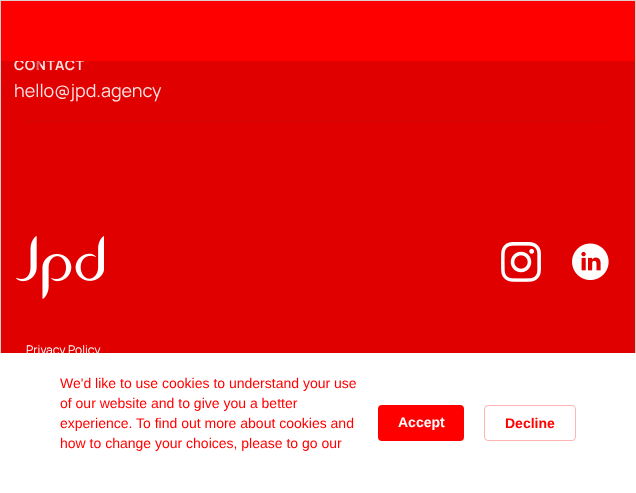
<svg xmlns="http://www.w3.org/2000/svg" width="636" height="493">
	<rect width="100%" height="100%" fill="#E10000" />
	<rect x="21" y="121" width="584" height="1" fill="#CF0404" />
	<image x="16" y="236" width="88" height="63" href="assets/img1.png" />
	<image x="501" y="242" width="40" height="40" href="assets/img2.png" />
	<image x="572" y="243" width="37" height="37" href="assets/img3.png" />
	<text x="14" y="70" font-family="Manrope" font-size="14" font-weight="700" letter-spacing="0.5" fill="#FCE2E2">CONTACT</text>
	<image x="36" y="61" width="5" height="9" href="assets/img4.png" />
	<rect x="0.5" y="0.5" width="635" height="492" fill="none" stroke="#DFCECE" />
	<rect x="1" y="1" width="634" height="60" fill="#FF0000" />
	<text x="14" y="97" font-family="Manrope" font-size="18" fill="#FCE2E2">hello@jpd.agency</text>
	<text x="26" y="354" font-family="Manrope" font-size="12" fill="#FFFFFF">Privacy Policy</text>
	<rect x="0" y="353" width="636" height="140" fill="#FFFFFF" />
	<g font-family="Liberation Sans" font-size="14" fill="#FF0000">
		<text x="60" y="388">We'd like to use cookies to understand your use</text>
		<text x="60" y="408">of our website and to give you a better</text>
		<text x="60" y="428">experience. To find out more about cookies and</text>
		<text x="60" y="448">how to change your choices, please to go our</text>
	</g>
	<rect x="378" y="405" width="86" height="36" rx="4" fill="#FF0000" />
	<text x="398" y="427" font-family="Liberation Sans" font-size="14" font-weight="700" fill="#FFFFFF">Accept</text>
	<rect x="484.5" y="405.5" width="91" height="35" rx="3.5" fill="none" stroke="#FFB3B3" />
	<text x="505" y="428" font-family="Liberation Sans" font-size="14" font-weight="700" fill="#FF0000">Decline</text>
</svg>
